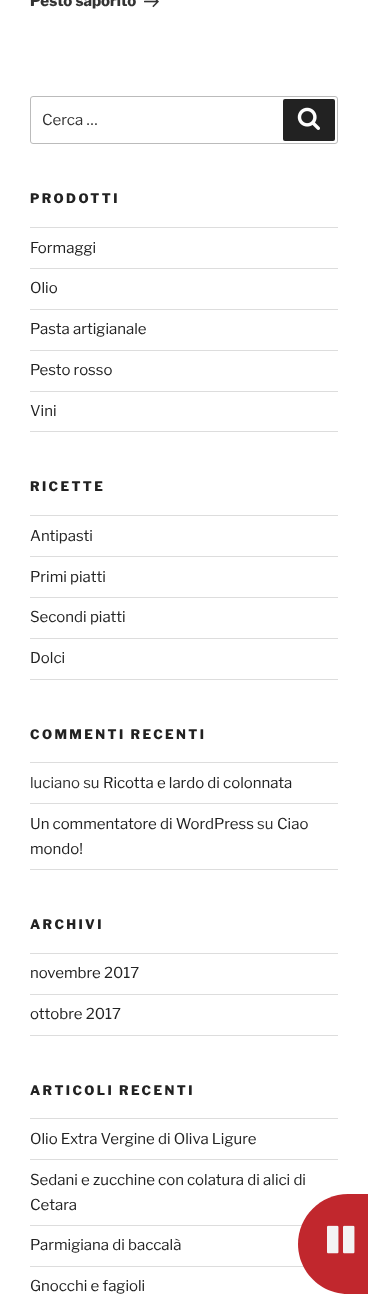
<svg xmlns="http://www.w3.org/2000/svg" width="368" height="1294">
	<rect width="100%" height="100%" fill="#FFFFFF" />
	<text x="30" y="6" font-family="Libre Franklin" font-size="15" font-weight="800" fill="#333333">Pesto saporito</text>
	<image x="144" y="0" width="15" height="8" href="assets/img1.png" />
	<rect x="30.5" y="96.5" width="307" height="47" rx="2.5" fill="none" stroke="#BBBBBB" />
	<text x="42" y="125" font-family="Libre Franklin" font-size="15" fill="#333333">Cerca …</text>
	<rect x="283" y="99" width="52" height="42" rx="2" fill="#222222" />
	<image x="297" y="107" width="23" height="23" href="assets/img2.png" />
	<text x="30" y="203" font-family="Libre Franklin" font-size="13" font-weight="800" letter-spacing="2.4" fill="#222222">PRODOTTI</text>
	<rect x="30" y="227" width="308" height="1" fill="#DDDDDD" />
	<rect x="30" y="268" width="308" height="1" fill="#DDDDDD" />
	<text x="30" y="253" font-family="Libre Franklin" font-size="15" fill="#222222">Formaggi</text>
	<rect x="30" y="309" width="308" height="1" fill="#DDDDDD" />
	<text x="30" y="293" font-family="Libre Franklin" font-size="15" fill="#222222">Olio</text>
	<rect x="30" y="350" width="308" height="1" fill="#DDDDDD" />
	<text x="30" y="334" font-family="Libre Franklin" font-size="15" fill="#222222">Pasta artigianale</text>
	<rect x="30" y="391" width="308" height="1" fill="#DDDDDD" />
	<text x="30" y="375" font-family="Libre Franklin" font-size="15" fill="#222222">Pesto rosso</text>
	<rect x="30" y="431" width="308" height="1" fill="#DDDDDD" />
	<text x="30" y="416" font-family="Libre Franklin" font-size="15" fill="#222222">Vini</text>
	<text x="30" y="491" font-family="Libre Franklin" font-size="13" font-weight="800" letter-spacing="2.4" fill="#222222">RICETTE</text>
	<rect x="30" y="515" width="308" height="1" fill="#DDDDDD" />
	<rect x="30" y="556" width="308" height="1" fill="#DDDDDD" />
	<text x="30" y="541" font-family="Libre Franklin" font-size="15" fill="#222222">Antipasti</text>
	<rect x="30" y="597" width="308" height="1" fill="#DDDDDD" />
	<text x="30" y="582" font-family="Libre Franklin" font-size="15" fill="#222222">Primi piatti</text>
	<rect x="30" y="638" width="308" height="1" fill="#DDDDDD" />
	<text x="30" y="622" font-family="Libre Franklin" font-size="15" fill="#222222">Secondi piatti</text>
	<rect x="30" y="679" width="308" height="1" fill="#DDDDDD" />
	<text x="30" y="663" font-family="Libre Franklin" font-size="15" fill="#222222">Dolci</text>
	<text x="30" y="739" font-family="Libre Franklin" font-size="13" font-weight="800" letter-spacing="2.4" fill="#222222">COMMENTI RECENTI</text>
	<rect x="30" y="762" width="308" height="1" fill="#DDDDDD" />
	<rect x="30" y="803" width="308" height="1" fill="#DDDDDD" />
	<text x="30" y="788" font-family="Libre Franklin" font-size="15" fill="#333333">luciano su</text>
	<text x="103" y="788" font-family="Libre Franklin" font-size="15" fill="#222222">Ricotta e lardo di colonnata</text>
	<rect x="30" y="869" width="308" height="1" fill="#DDDDDD" />
	<text x="30" y="829" font-family="Libre Franklin" font-size="15" fill="#222222">Un commentatore di WordPress</text>
	<text x="257" y="829" font-family="Libre Franklin" font-size="15" fill="#333333">su</text>
	<g font-family="Libre Franklin" font-size="15" fill="#222222">
		<text x="277" y="829">Ciao</text>
		<text x="30" y="854">mondo!</text>
	</g>
	<text x="30" y="929" font-family="Libre Franklin" font-size="13" font-weight="800" letter-spacing="2.4" fill="#222222">ARCHIVI</text>
	<rect x="30" y="953" width="308" height="1" fill="#DDDDDD" />
	<rect x="30" y="994" width="308" height="1" fill="#DDDDDD" />
	<text x="30" y="978" font-family="Libre Franklin" font-size="15" fill="#222222">novembre 2017</text>
	<rect x="30" y="1035" width="308" height="1" fill="#DDDDDD" />
	<text x="30" y="1019" font-family="Libre Franklin" font-size="15" fill="#222222">ottobre 2017</text>
	<text x="30" y="1095" font-family="Libre Franklin" font-size="13" font-weight="800" letter-spacing="2.4" fill="#222222">ARTICOLI RECENTI</text>
	<rect x="30" y="1118" width="308" height="1" fill="#DDDDDD" />
	<rect x="30" y="1159" width="308" height="1" fill="#DDDDDD" />
	<text x="30" y="1144" font-family="Libre Franklin" font-size="15" fill="#222222">Olio Extra Vergine di Oliva Ligure</text>
	<rect x="30" y="1225" width="272" height="1" fill="#DDDDDD" />
	<g font-family="Libre Franklin" font-size="15" fill="#222222">
		<text x="30" y="1185">Sedani e zucchine con colatura di alici di</text>
		<text x="30" y="1210">Cetara</text>
	</g>
	<rect x="30" y="1266" width="274" height="1" fill="#DDDDDD" />
	<g font-family="Libre Franklin" font-size="15" fill="#222222">
		<text x="30" y="1250">Parmigiana di baccalà</text>
		<text x="30" y="1291">Gnocchi e fagioli</text>
	</g>
	<path d="M348 1194H368V1294H348C320.5 1294 298 1271.5 298 1244C298 1216.5 320.5 1194 348 1194Z" fill="#C1272D" />
	<image x="327" y="1225" width="28" height="29" href="assets/img3.png" />
</svg>
